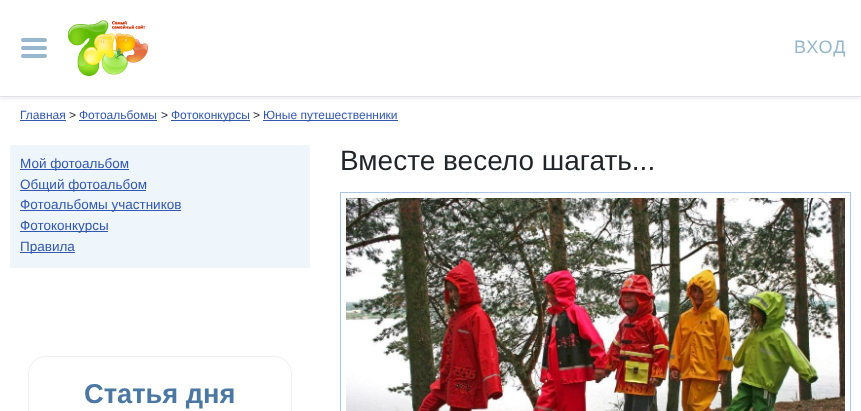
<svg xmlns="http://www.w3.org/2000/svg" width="861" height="411">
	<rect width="100%" height="100%" fill="#FFFFFF" />
	<rect x="0" y="2" width="861" height="97" fill="#000000" fill-opacity="0.07" filter="blur(2px)" />
	<rect x="0" y="0" width="861" height="96" fill="#FFFFFF" />
	<rect x="0" y="96" width="861" height="1" fill="#DEE2E6" />
	<path d="M23 40H45M23 48H45M23 56H45" fill="none" stroke="#96B7CC" stroke-width="4" stroke-linecap="round" />
	<image x="68" y="20" width="80" height="56" href="assets/img1.png" />
	<text x="794" y="53" font-family="Liberation Sans" font-size="18" letter-spacing="1" fill="#96B7CC">ВХОД</text>
	<text x="20" y="119" font-family="Liberation Sans" font-size="12" fill="#3157B0">Главная</text>
	<rect x="20" y="120" width="46" height="1" fill="#3157B0" />
	<text x="69" y="119" font-family="Liberation Sans" font-size="12" fill="#212529">&gt;</text>
	<text x="79" y="119" font-family="Liberation Sans" font-size="12" fill="#3157B0">Фотоальбомы</text>
	<rect x="79" y="120" width="78" height="1" fill="#3157B0" />
	<text x="161" y="119" font-family="Liberation Sans" font-size="12" fill="#212529">&gt;</text>
	<rect x="171" y="120" width="79" height="1" fill="#3157B0" />
	<text x="171" y="119" font-family="Liberation Sans" font-size="12" fill="#3157B0">Фотоконкурсы</text>
	<text x="253" y="119" font-family="Liberation Sans" font-size="12" fill="#212529">&gt;</text>
	<rect x="263" y="120" width="135" height="1" fill="#3157B0" />
	<text x="263" y="119" font-family="Liberation Sans" font-size="12" fill="#3157B0">Юные путешественники</text>
	<rect x="10" y="145" width="300" height="123" fill="#EEF5FB" />
	<rect x="20" y="169" width="109" height="1" fill="#3157B0" />
	<text x="20" y="168" font-family="Liberation Sans" font-size="13.5" fill="#3157B0">Мой фотоальбом</text>
	<rect x="20" y="190" width="126" height="1" fill="#3157B0" />
	<text x="20" y="189" font-family="Liberation Sans" font-size="13.5" fill="#3157B0">Общий фотоальбом</text>
	<rect x="20" y="210" width="161" height="1" fill="#3157B0" />
	<text x="20" y="209" font-family="Liberation Sans" font-size="13.5" fill="#3157B0">Фотоальбомы участников</text>
	<rect x="20" y="231" width="88" height="1" fill="#3157B0" />
	<text x="20" y="230" font-family="Liberation Sans" font-size="13.5" fill="#3157B0">Фотоконкурсы</text>
	<rect x="20" y="252" width="55" height="1" fill="#3157B0" />
	<text x="20" y="251" font-family="Liberation Sans" font-size="13.5" fill="#3157B0">Правила</text>
	<rect x="28.5" y="356.5" width="263" height="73" rx="17.5" fill="none" stroke="#EFEFEF" />
	<text x="84" y="403" font-family="Liberation Sans" font-size="27.25" font-weight="700" fill="#4A78A3">Статья дня</text>
	<text x="340" y="170" font-family="Liberation Sans" font-size="28" fill="#212529">Вместе весело шагать...</text>
	<rect x="340.5" y="192.5" width="510" height="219" fill="none" stroke="#A9C7E4" />
	<image x="346" y="198" width="499" height="213" href="assets/img2.png" />
</svg>
